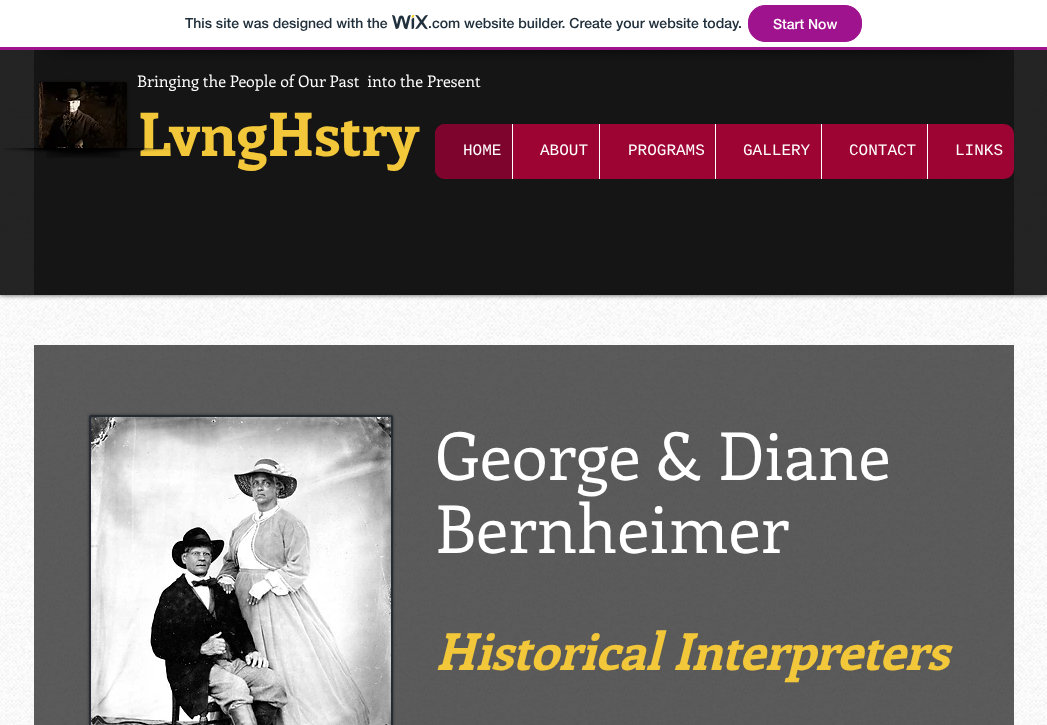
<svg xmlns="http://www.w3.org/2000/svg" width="1047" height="725">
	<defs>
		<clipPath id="clip1"><rect x="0" y="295" width="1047" height="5" /></clipPath>
	</defs>
	<rect width="100%" height="100%" fill="#FFFFFF" />
	<image x="0" y="50" width="1047" height="675" href="assets/img2.png" />
	<image x="37" y="50" width="97" height="11" href="assets/img3.png" />
	<image x="134" y="50" width="780" height="11" href="assets/img4.png" />
	<image x="914" y="50" width="97" height="11" href="assets/img5.png" />
	<g clip-path="url(#clip1)">
		<rect x="0" y="50" width="1047" height="245" fill="#000000" fill-opacity="0.7" filter="blur(2.5px)" />
	</g>
	<rect x="0" y="45" width="1047" height="2" fill="#FFFFFF" />
	<rect x="0" y="47" width="1047" height="3" fill="#A0138E" />
	<text x="185" y="28" font-family="'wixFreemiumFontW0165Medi'" font-size="14" font-weight="500" fill="#20303C">This site was designed with the</text>
	<image x="392" y="15" width="36" height="15" href="assets/img1.png" />
	<text x="428" y="28" font-family="'wixFreemiumFontW0165Medi'" font-size="14" font-weight="500" fill="#20303C">.com website builder. Create your website today.</text>
	<rect x="748.5" y="5.5" width="113" height="36" rx="16.5" fill="#A0138E" stroke="#A0138E" />
	<text x="773" y="29" font-family="'wixFreemiumFontW0165Medi'" font-size="14" font-weight="500" fill="#FFFFFF">Start Now</text>
	<rect x="0" y="50" width="1047" height="245" fill="#000000" fill-opacity="0.86" />
	<rect x="34" y="50" width="980" height="245" fill="#000000" fill-opacity="0.4" />
	<rect x="39" y="82" width="88" height="66" rx="3" fill="#000000" fill-opacity="0.5" filter="blur(1.5px)" />
	<rect x="39" y="82" width="88" height="66" rx="3" fill="#000000" />
	<image x="39" y="82" width="88" height="66" href="assets/img6.png" />
	<text x="138" y="156" font-family="Enriqueta" font-size="60" font-weight="700" fill="#F2C73A">LvngHstry</text>
	<image x="46" y="148" width="138" height="10" href="assets/img8.png" />
	<image x="4" y="148" width="116" height="10" href="assets/img7.png" />
	<text x="137" y="87" font-family="Enriqueta" font-size="16" fill="#FFFFFF" xml:space="preserve">Bringing the People of Our Past  into the Present</text>
	<rect x="435" y="124" width="579" height="55" rx="10" fill="#9E0433" />
	<path d="M445 124H512V179H445C439.5 179 435 174.5 435 169V134C435 128.5 439.5 124 445 124Z" fill="#7F042D" />
	<text x="463" y="155" font-family="Liberation Mono" font-size="16" fill="#FFFFFF">HOME</text>
	<rect x="512" y="124" width="1" height="55" fill="#FFFFFF" />
	<text x="540" y="155" font-family="Liberation Mono" font-size="16" fill="#FFFFFF">ABOUT</text>
	<rect x="599" y="124" width="1" height="55" fill="#FFFFFF" />
	<text x="628" y="155" font-family="Liberation Mono" font-size="16" fill="#FFFFFF">PROGRAMS</text>
	<rect x="715" y="124" width="1" height="55" fill="#FFFFFF" />
	<text x="743" y="155" font-family="Liberation Mono" font-size="16" fill="#FFFFFF">GALLERY</text>
	<rect x="821" y="124" width="1" height="55" fill="#FFFFFF" />
	<text x="849" y="155" font-family="Liberation Mono" font-size="16" fill="#FFFFFF">CONTACT</text>
	<rect x="927" y="124" width="1" height="55" fill="#FFFFFF" />
	<text x="955" y="155" font-family="Liberation Mono" font-size="16" fill="#FFFFFF">LINKS</text>
	<rect x="34" y="345" width="980" height="380" fill="#000000" fill-opacity="0.64" />
	<rect x="89" y="415" width="304" height="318" rx="3" fill="#000000" fill-opacity="0.5" filter="blur(1.5px)" />
	<rect x="89" y="415" width="304" height="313" rx="3" fill="#252932" fill-opacity="0.65" />
	<rect x="90" y="416" width="302" height="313" rx="2" fill="none" stroke="#252932" stroke-opacity="0.65" stroke-width="2" />
	<image x="91" y="417" width="300" height="308" href="assets/img9.png" />
	<g font-family="Enriqueta" font-size="66" fill="#FFFFFF">
		<text x="435" y="480">George &amp; Diane</text>
		<text x="435" y="553">Bernheimer</text>
	</g>
	<text x="435" y="670" font-family="Enriqueta" font-size="51" font-weight="700" font-style="italic" fill="#F2C73A">Historical Interpreters</text>
</svg>
